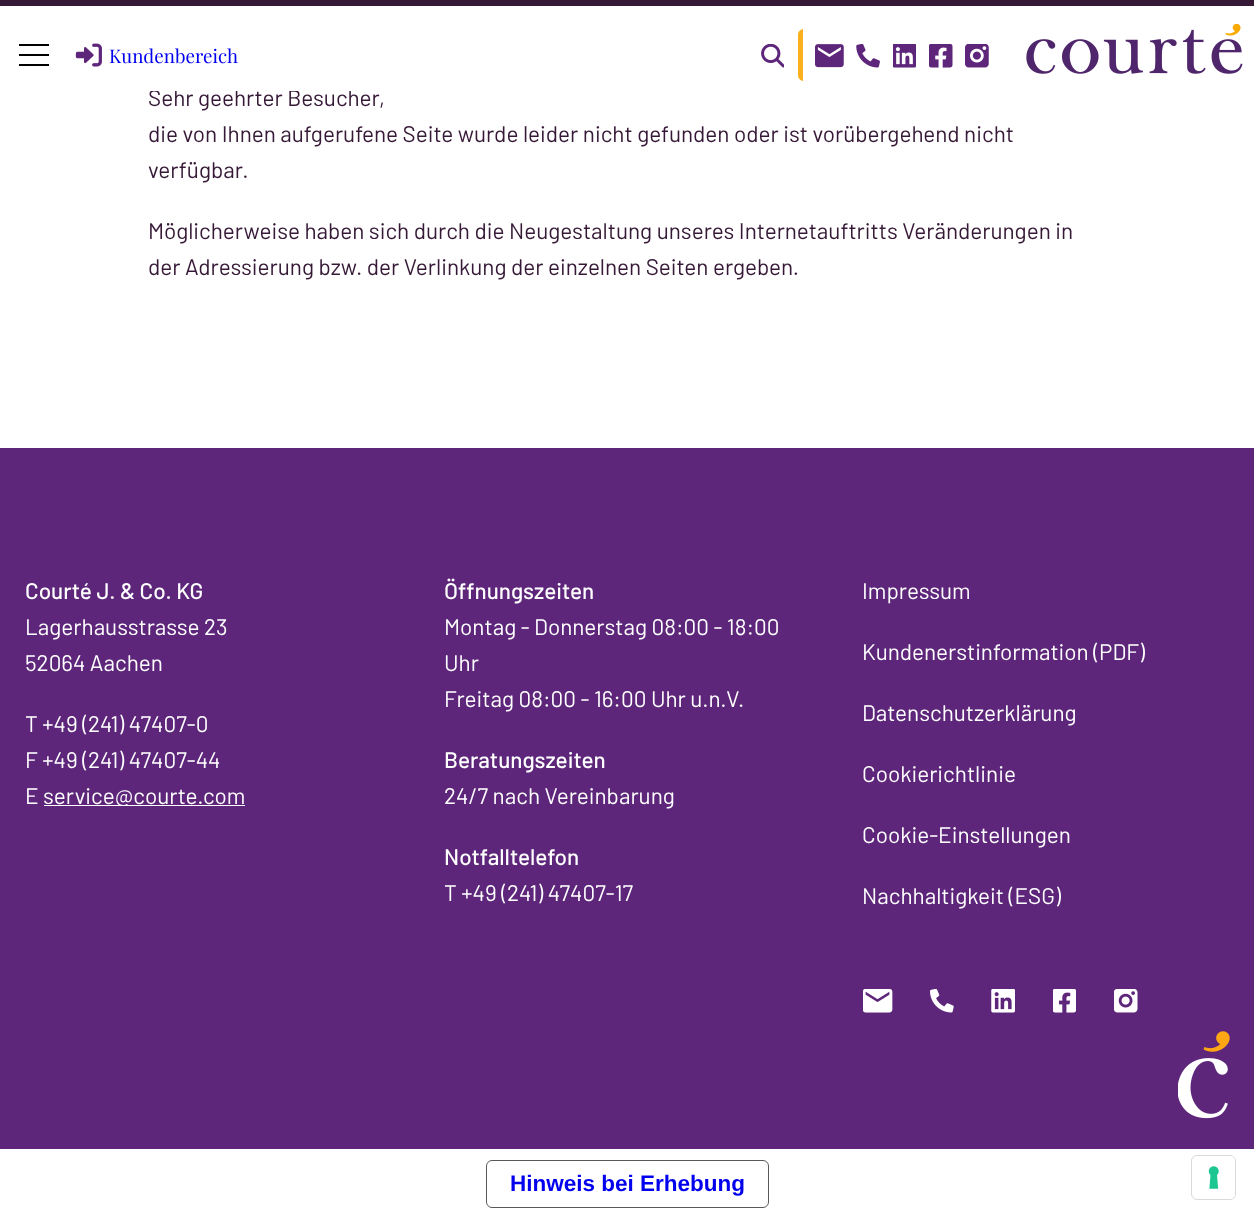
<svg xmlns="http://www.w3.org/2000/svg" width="1254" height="1218">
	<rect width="100%" height="100%" fill="#FFFFFF" />
	<text x="148" y="106" font-family="Barlow" font-size="22.5" fill="#361936">Sehr geehrter Besucher,</text>
	<rect x="150" y="90" width="201" height="1" fill="#FFFFFF" />
	<rect x="0" y="0" width="1254" height="6" fill="#361936" />
	<rect x="19" y="44" width="30" height="2" fill="#000000" />
	<rect x="19" y="54" width="30" height="2" fill="#000000" />
	<rect x="19" y="64" width="30" height="2" fill="#000000" />
	<image x="75" y="43" width="27" height="24" href="assets/img1.png" />
	<text x="109" y="63" font-family="Playfair Display" font-size="18.75" fill="#0000EE">Kundenbereich</text>
	<image x="761" y="44" width="23" height="24" href="assets/img2.png" />
	<path d="M804 29H803V81H804C800.5 81 798 78.5 798 75V35C798 31.5 800.5 29 804 29Z" fill="#FCB11C" />
	<image x="815" y="44" width="29" height="24" href="assets/img3.png" />
	<image x="856" y="44" width="24" height="24" href="assets/img4.png" />
	<image x="893" y="44" width="23" height="24" href="assets/img5.png" />
	<image x="929" y="44" width="24" height="24" href="assets/img6.png" />
	<image x="965" y="44" width="24" height="24" href="assets/img7.png" />
	<image x="1026" y="24" width="217" height="50" href="assets/img8.png" />
	<g font-family="Barlow" font-size="22.5" fill="#361936">
		<text x="148" y="142">die von Ihnen aufgerufene Seite wurde leider nicht gefunden oder ist vorübergehend nicht</text>
		<text x="148" y="178">verfügbar.</text>
		<text x="148" y="239">Möglicherweise haben sich durch die Neugestaltung unseres Internetauftritts Veränderungen in</text>
		<text x="148" y="275">der Adressierung bzw. der Verlinkung der einzelnen Seiten ergeben.</text>
	</g>
	<rect x="0" y="448" width="1254" height="701" fill="#5E267B" />
	<text x="25" y="599" font-family="Barlow" font-size="22.5" font-weight="500" fill="#FFFFFF">Courté J. &amp; Co. KG</text>
	<g font-family="Barlow" font-size="22.5" fill="#FFFFFF">
		<text x="25" y="635">Lagerhausstrasse 23</text>
		<text x="25" y="671">52064 Aachen</text>
		<text x="25" y="732">T +49 (241) 47407-0</text>
		<text x="25" y="768">F +49 (241) 47407-44</text>
		<text x="25" y="804">E</text>
	</g>
	<rect x="44" y="805" width="201" height="1" fill="#FFFFFF" />
	<text x="43" y="804" font-family="Barlow" font-size="22.5" fill="#FFFFFF">service@courte.com</text>
	<text x="444" y="599" font-family="Barlow" font-size="22.5" font-weight="500" fill="#FFFFFF">Öffnungszeiten</text>
	<g font-family="Barlow" font-size="22.5" fill="#FFFFFF">
		<text x="444" y="635">Montag - Donnerstag 08:00 - 18:00</text>
		<text x="444" y="671">Uhr</text>
		<text x="444" y="707">Freitag 08:00 - 16:00 Uhr u.n.V.</text>
	</g>
	<text x="444" y="768" font-family="Barlow" font-size="22.5" font-weight="500" fill="#FFFFFF">Beratungszeiten</text>
	<text x="444" y="804" font-family="Barlow" font-size="22.5" fill="#FFFFFF">24/7 nach Vereinbarung</text>
	<text x="444" y="865" font-family="Barlow" font-size="22.5" font-weight="500" fill="#FFFFFF">Notfalltelefon</text>
	<g font-family="Barlow" font-size="22.5" fill="#FFFFFF">
		<text x="444" y="901">T +49 (241) 47407-17</text>
		<text x="862" y="599">Impressum</text>
		<text x="862" y="660">Kundenerstinformation (PDF)</text>
		<text x="862" y="721">Datenschutzerklärung</text>
		<text x="862" y="782">Cookierichtlinie</text>
		<text x="862" y="843">Cookie-Einstellungen</text>
		<text x="862" y="904">Nachhaltigkeit (ESG)</text>
	</g>
	<image x="863" y="989" width="30" height="24" href="assets/img9.png" />
	<image x="930" y="989" width="24" height="24" href="assets/img10.png" />
	<image x="991" y="989" width="24" height="24" href="assets/img11.png" />
	<image x="1053" y="989" width="23" height="24" href="assets/img12.png" />
	<image x="1114" y="989" width="24" height="24" href="assets/img13.png" />
	<image x="1178" y="1031" width="52" height="88" href="assets/img14.png" />
	<rect x="486.5" y="1160.5" width="282" height="47" rx="5.5" fill="none" stroke="#595959" />
	<text x="510" y="1191" font-family="Liberation Sans" font-size="22.5" font-weight="700" fill="#0000EE">Hinweis bei Erhebung</text>
	<rect x="1191.5" y="1155.5" width="44" height="44" rx="5.5" fill="none" stroke="#D9D9D9" />
	<rect x="1193" y="1156" width="42" height="43" rx="5" fill="#FFFFFF" />
	<image x="1208" y="1166" width="11" height="23" href="assets/img15.png" />
</svg>
